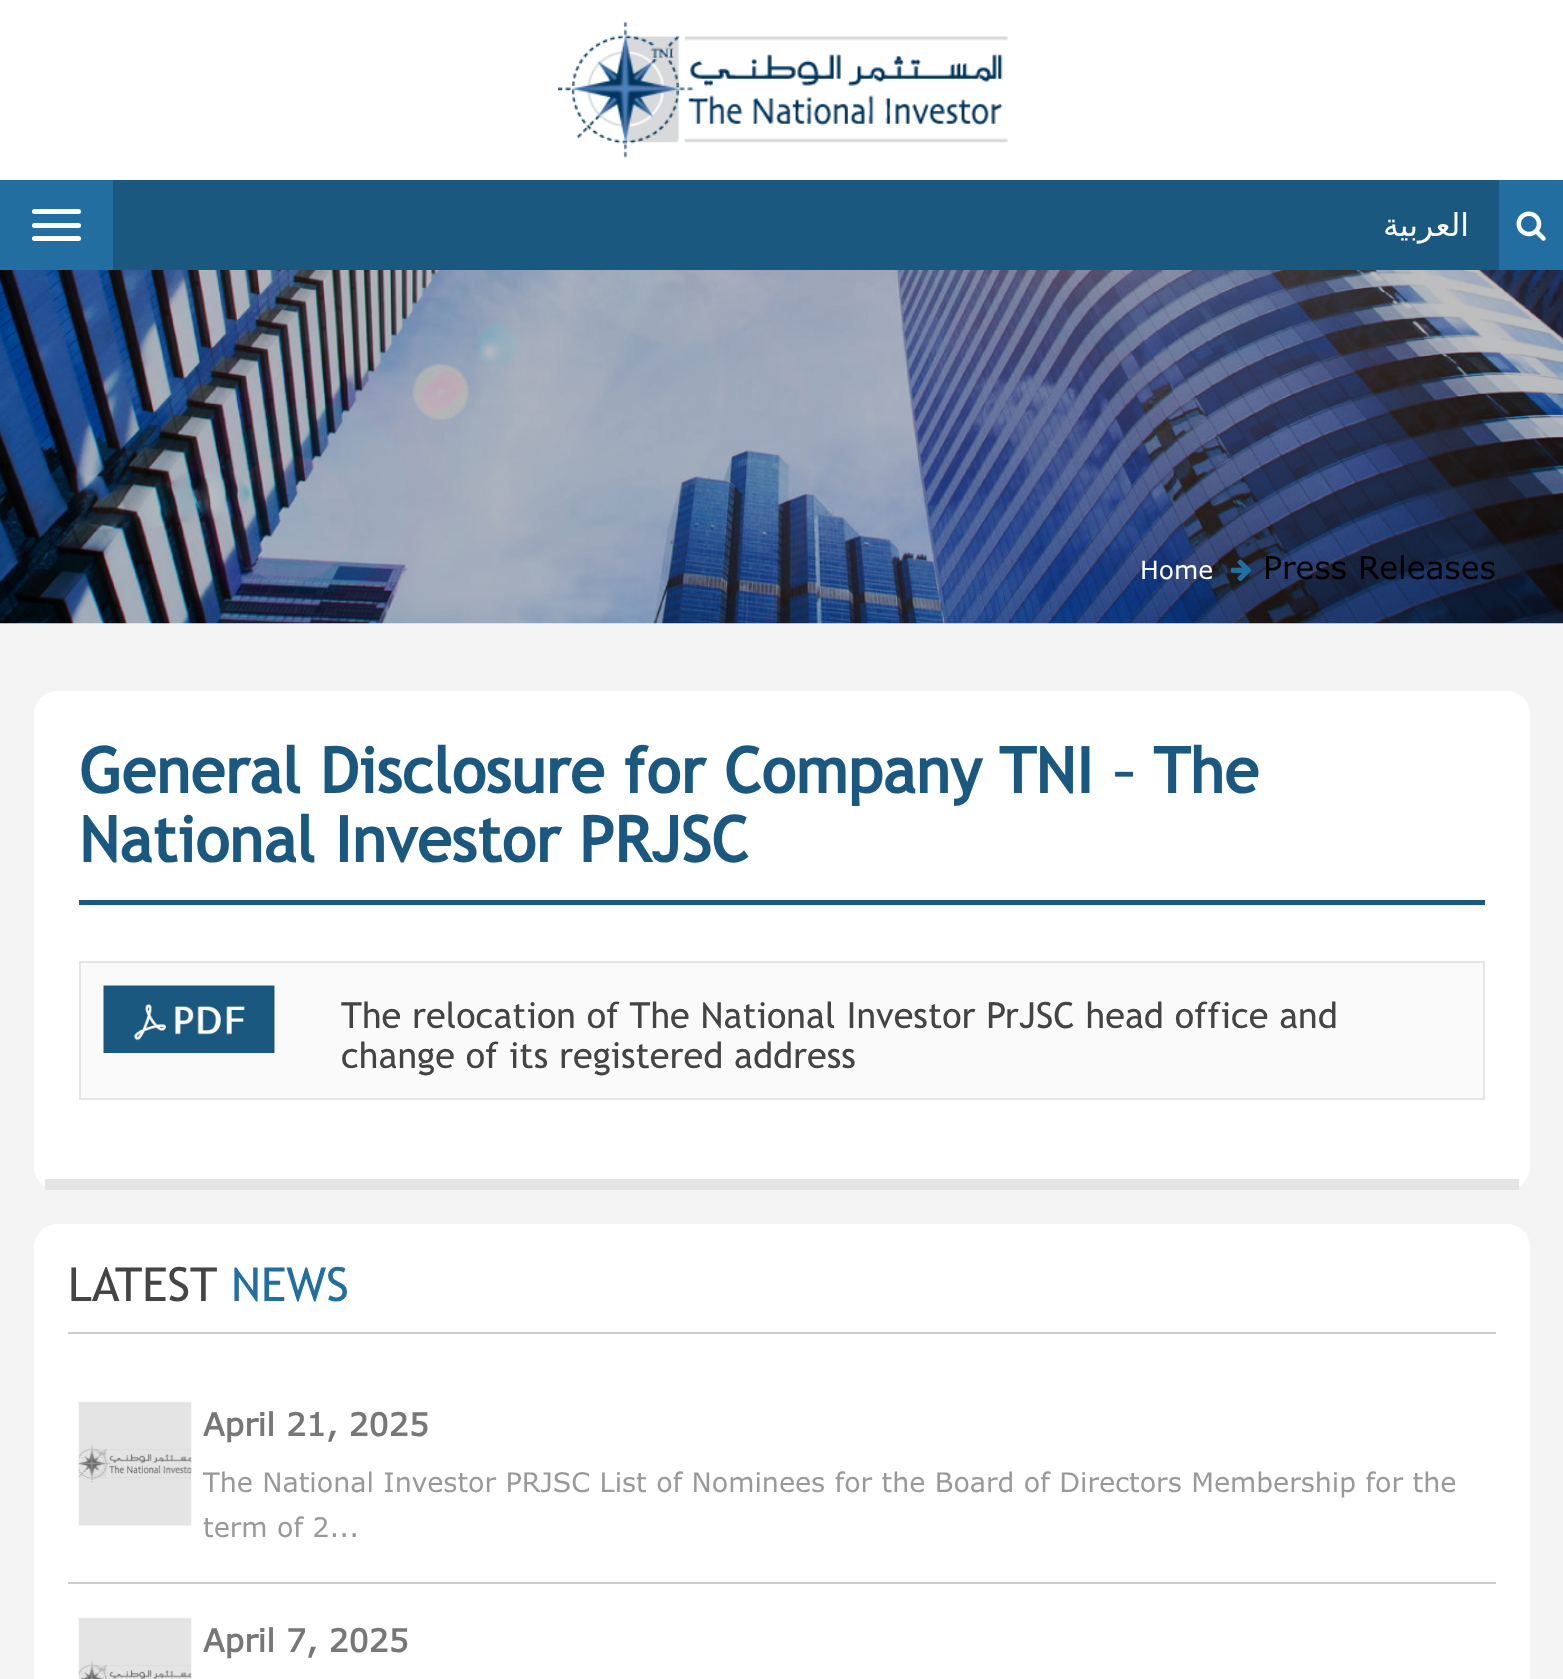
<svg xmlns="http://www.w3.org/2000/svg" width="1563" height="1679">
	<rect width="100%" height="100%" fill="#F4F4F4" />
	<rect x="0" y="0" width="1563" height="180" fill="#FFFFFF" />
	<image x="558" y="22" width="450" height="136" href="assets/img1.png" />
	<rect x="113" y="180" width="1386" height="90" fill="#1B5880" />
	<rect x="0" y="180" width="113" height="90" fill="#226EA0" />
	<rect x="32" y="209" width="49" height="5" rx="2.5" fill="#FFFFFF" />
	<rect x="32" y="223" width="49" height="5" rx="2.5" fill="#FFFFFF" />
	<rect x="32" y="236" width="49" height="5" rx="2.5" fill="#FFFFFF" />
	<text x="1469" y="236" font-family="DejaVu Sans" font-size="31.5" direction="rtl" fill="#FFFFFF">العربية</text>
	<rect x="1499" y="180" width="64" height="90" fill="#226EA0" />
	<image x="1516" y="211" width="30" height="30" href="assets/img2.png" />
	<image x="0" y="270" width="1563" height="354" href="assets/img3.png" />
	<text x="1140" y="579" font-family="Verdana" font-size="25" fill="#FFFFFF">Home</text>
	<image x="1230" y="559" width="21" height="22" href="assets/img4.png" />
	<text x="1263" y="579" font-family="Verdana" font-size="31.5" fill="#000000">Press Releases</text>
	<rect x="34" y="691" width="1496" height="499" rx="23" fill="#FFFFFF" />
	<rect x="45" y="1179" width="1474" height="11" fill="#E4E4E4" />
	<rect x="79" y="900" width="1406" height="5" fill="#1B5880" />
	<g font-family="Trebuchet MS" font-size="63" font-weight="700" fill="#1B5880">
		<text x="79" y="793">General Disclosure for Company</text>
		<text x="999" y="793">TNI – The</text>
		<text x="79" y="862">National Investor PRJSC</text>
	</g>
	<rect x="80" y="962" width="1404" height="137" fill="#FAFAFA" stroke="#E5E5E5" stroke-width="2" />
	<rect x="274" y="986" width="1" height="67" fill="#FFFFFF" />
	<image x="103" y="985" width="172" height="68" href="assets/img5.png" />
	<g font-family="Trebuchet MS" font-size="36" fill="#444444">
		<text x="341" y="1028">The relocation of The National Investor PrJSC head office and</text>
		<text x="341" y="1068">change of its registered address</text>
	</g>
	<rect x="34" y="1224" width="1496" height="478" rx="23" fill="#FFFFFF" />
	<rect x="68" y="1332" width="1428" height="2" fill="#CCCCCC" />
	<text x="68" y="1301" font-family="Trebuchet MS" font-size="47" fill="#444444">LATEST</text>
	<text x="231" y="1301" font-family="Trebuchet MS" font-size="47" fill="#226EA0">NEWS</text>
	<rect x="68" y="1582" width="1428" height="2" fill="#CCCCCC" />
	<image x="78" y="1401" width="114" height="125" href="assets/img6.png" />
	<text x="203" y="1436" font-family="Verdana" font-size="31.5" font-weight="700" fill="#777777">April 21, 2025</text>
	<g font-family="Verdana" font-size="27" fill="#999999">
		<text x="203" y="1492">The National Investor PRJSC List of Nominees for the Board of Directors Membership for the</text>
		<text x="203" y="1537">term of 2...</text>
	</g>
	<image x="78" y="1617" width="114" height="62" href="assets/img7.png" />
	<text x="203" y="1652" font-family="Verdana" font-size="31.5" font-weight="700" fill="#777777">April 7, 2025</text>
</svg>
